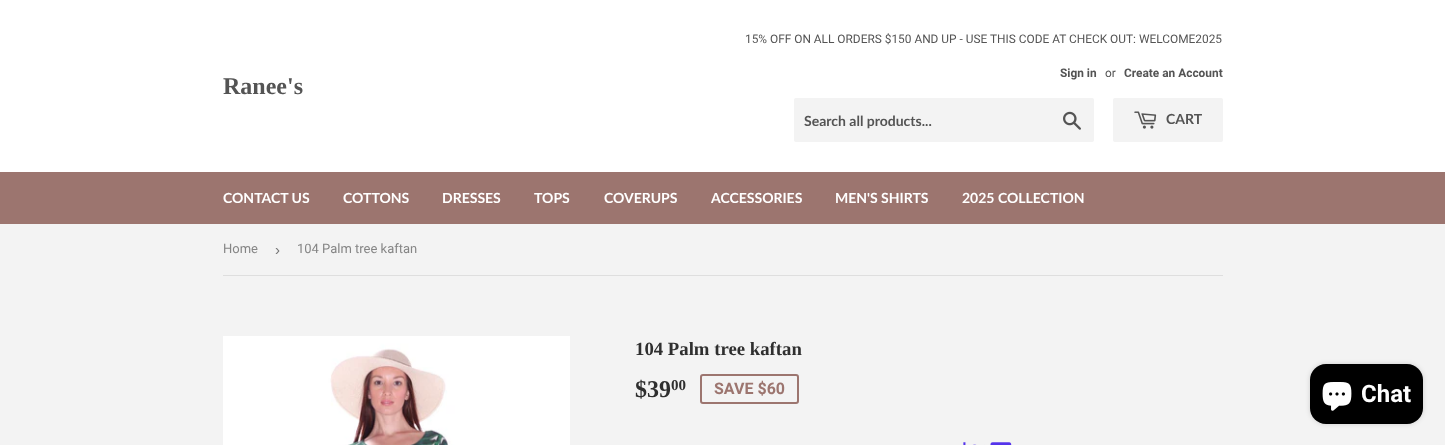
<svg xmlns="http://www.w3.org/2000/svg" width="1445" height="445">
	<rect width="100%" height="100%" fill="#F3F3F3" />
	<rect x="0" y="0" width="1445" height="172" fill="#FFFFFF" />
	<text x="223" y="94" font-family="Liberation Serif" font-size="24" font-weight="700" fill="#545454">Ranee's</text>
	<text x="745" y="43" font-family="Roboto" font-size="11.9" fill="#545454">15% OFF ON ALL ORDERS $150 AND UP - USE THIS CODE AT CHECK OUT: WELCOME2025</text>
	<text x="1060" y="77" font-family="Roboto" font-size="11.9" font-weight="700" fill="#545454">Sign in</text>
	<text x="1105" y="77" font-family="Roboto" font-size="11.9" fill="#545454">or</text>
	<text x="1124" y="77" font-family="Roboto" font-size="11.9" font-weight="700" fill="#545454">Create an Account</text>
	<rect x="794" y="98" width="300" height="44" rx="2" fill="#F3F3F3" />
	<text x="804" y="126" font-family="Lato" font-size="14" font-weight="700" fill="#545454">Search all products...</text>
	<image x="1063" y="111" width="18" height="19" href="assets/img1.png" />
	<rect x="1113" y="98" width="110" height="44" rx="2" fill="#F3F3F3" />
	<image x="1134" y="111" width="23" height="18" href="assets/img2.png" />
	<text x="1166" y="124" font-family="Lato" font-size="14" font-weight="700" fill="#545454">CART</text>
	<rect x="0" y="172" width="1445" height="52" fill="#9C756F" />
	<g font-family="Lato" font-size="14" font-weight="700" fill="#FFFFFF">
		<text x="223" y="203">CONTACT US</text>
		<text x="343" y="203">COTTONS</text>
		<text x="442" y="203">DRESSES</text>
		<text x="534" y="203">TOPS</text>
		<text x="604" y="203">COVERUPS</text>
		<text x="711" y="203">ACCESSORIES</text>
		<text x="835" y="203">MEN'S SHIRTS</text>
		<text x="962" y="203">2025 COLLECTION</text>
	</g>
	<rect x="223" y="275" width="1000" height="1" fill="#DEDEDE" />
	<text x="223" y="253" font-family="Roboto" font-size="13" fill="#858585">Home</text>
	<text x="275" y="255" font-family="Liberation Sans" font-size="15" fill="#767676">›</text>
	<text x="297" y="253" font-family="Roboto" font-size="13" fill="#858585">104 Palm tree kaftan</text>
	<image x="223" y="336" width="347" height="109" href="assets/img3.png" />
	<text x="635" y="355" font-family="Liberation Serif" font-size="18.75" font-weight="700" fill="#2F2F2F">104 Palm tree kaftan</text>
	<text x="635" y="397" font-family="Liberation Serif" font-size="24" font-weight="700" fill="#2F2F2F">$39</text>
	<text x="671" y="390" font-family="Liberation Serif" font-size="15" font-weight="700" fill="#2F2F2F">00</text>
	<rect x="701" y="375" width="97" height="28" rx="2" fill="none" stroke="#9C756F" stroke-width="2" />
	<text x="714" y="394" font-family="Roboto" font-size="16" font-weight="700" fill="#9C756F">SAVE $60</text>
	<image x="963" y="442" width="49" height="3" href="assets/img4.png" />
	<rect x="1310" y="364" width="113" height="60" rx="16" fill="#000000" fill-opacity="0.15" filter="blur(2.5px)" />
	<rect x="1310" y="364" width="113" height="60" rx="16" fill="#000000" />
	<image x="1322" y="382" width="30" height="29" href="assets/img5.png" />
	<text x="1361" y="402" font-family="Roboto" font-size="24" font-weight="700" fill="#FFFFFF">Chat</text>
</svg>
